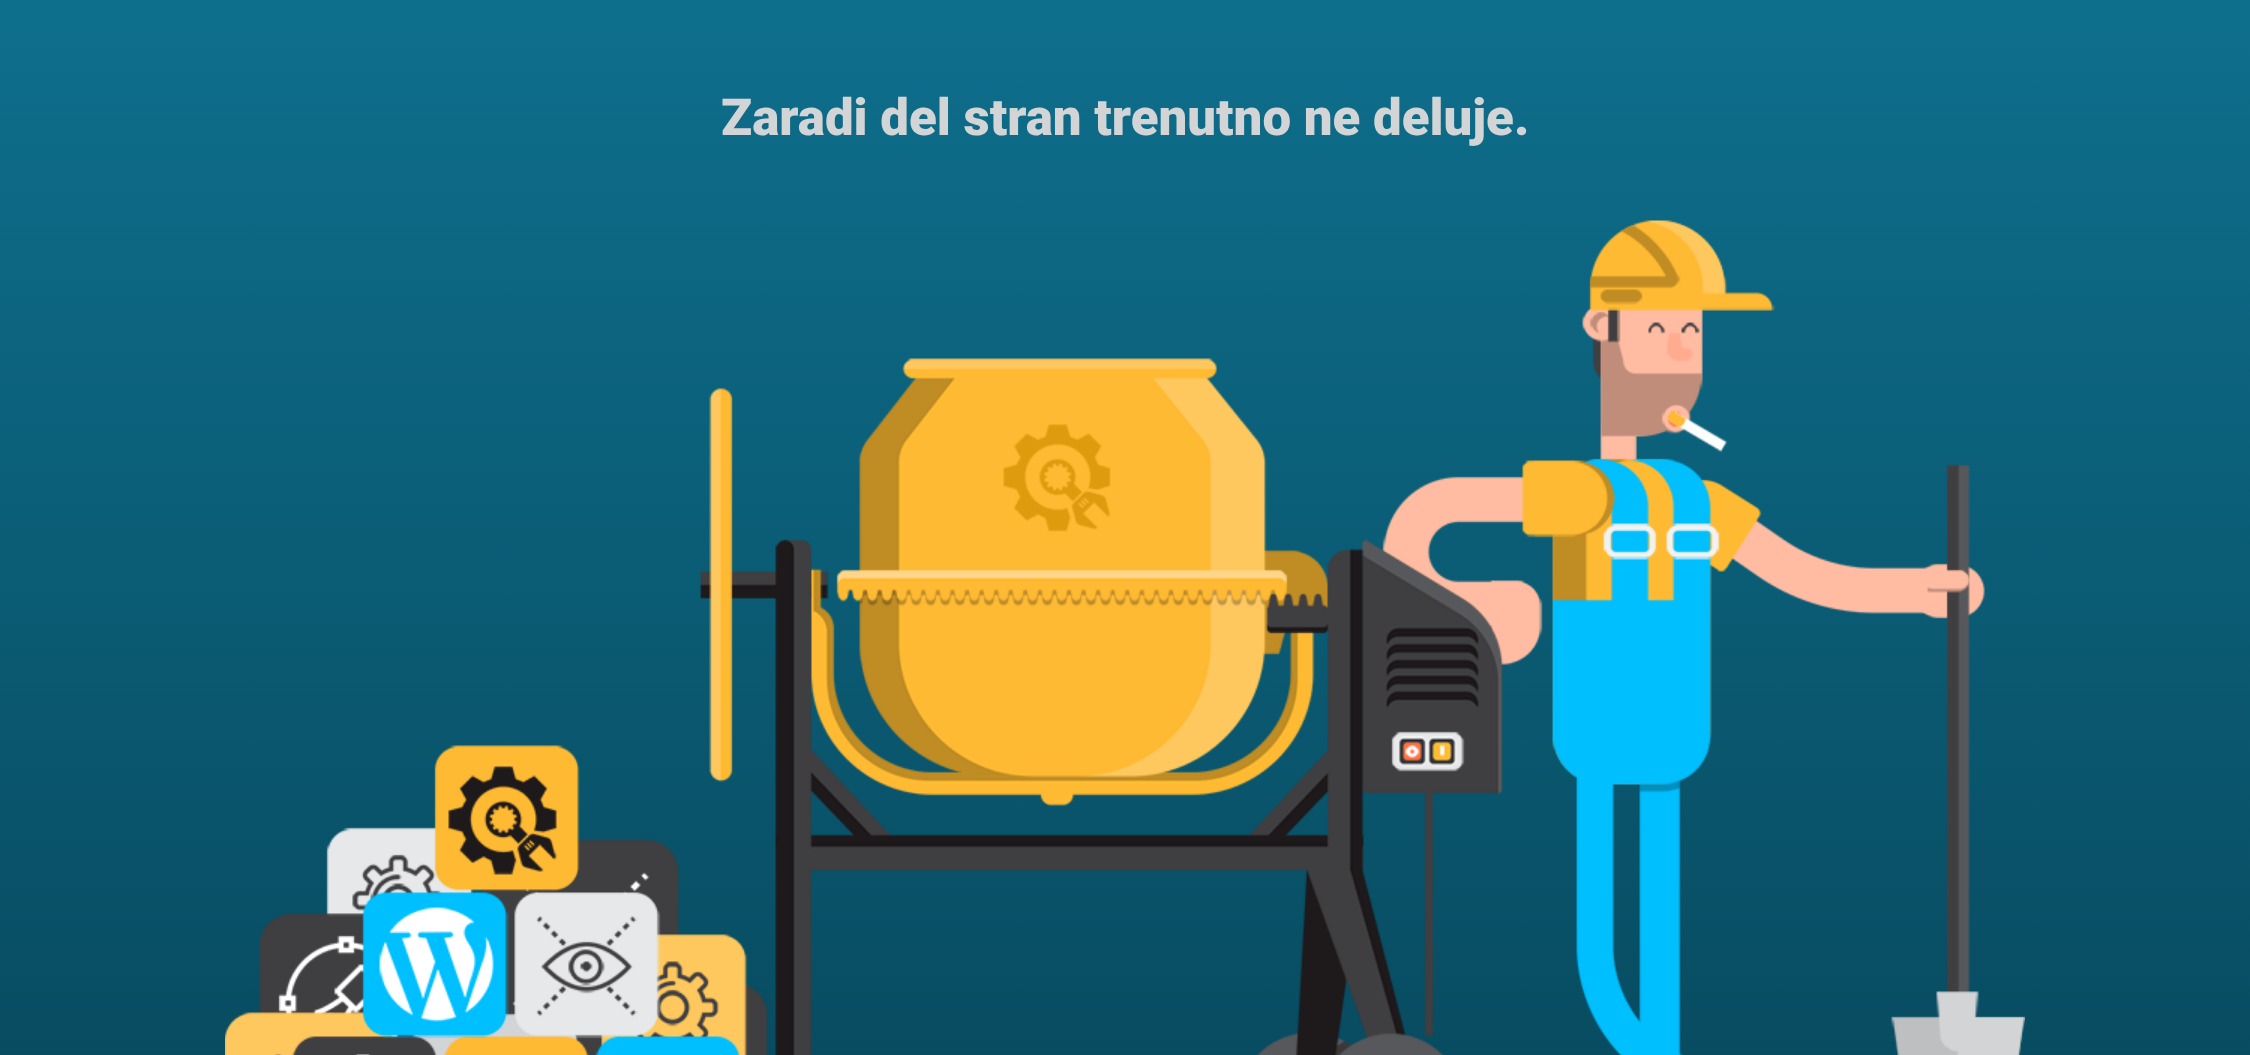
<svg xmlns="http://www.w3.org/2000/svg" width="2250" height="1055">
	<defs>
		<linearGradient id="g1" gradientUnits="userSpaceOnUse" x1="1125" y1="0" x2="1125" y2="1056"><stop offset="0" stop-color="#0E6F8D" /><stop offset="1" stop-color="#084C61" /></linearGradient>
	</defs>
	<rect width="100%" height="100%" fill="#FFFFFF" />
	<rect x="0" y="0" width="2250" height="1055" fill="url(#g1)" />
	<text x="721" y="135" font-family="Roboto" font-size="51" font-weight="900" fill="#D2D4D5">Zaradi del stran trenutno ne deluje.</text>
	<image x="225" y="220" width="1800" height="835" href="assets/img1.png" />
</svg>
